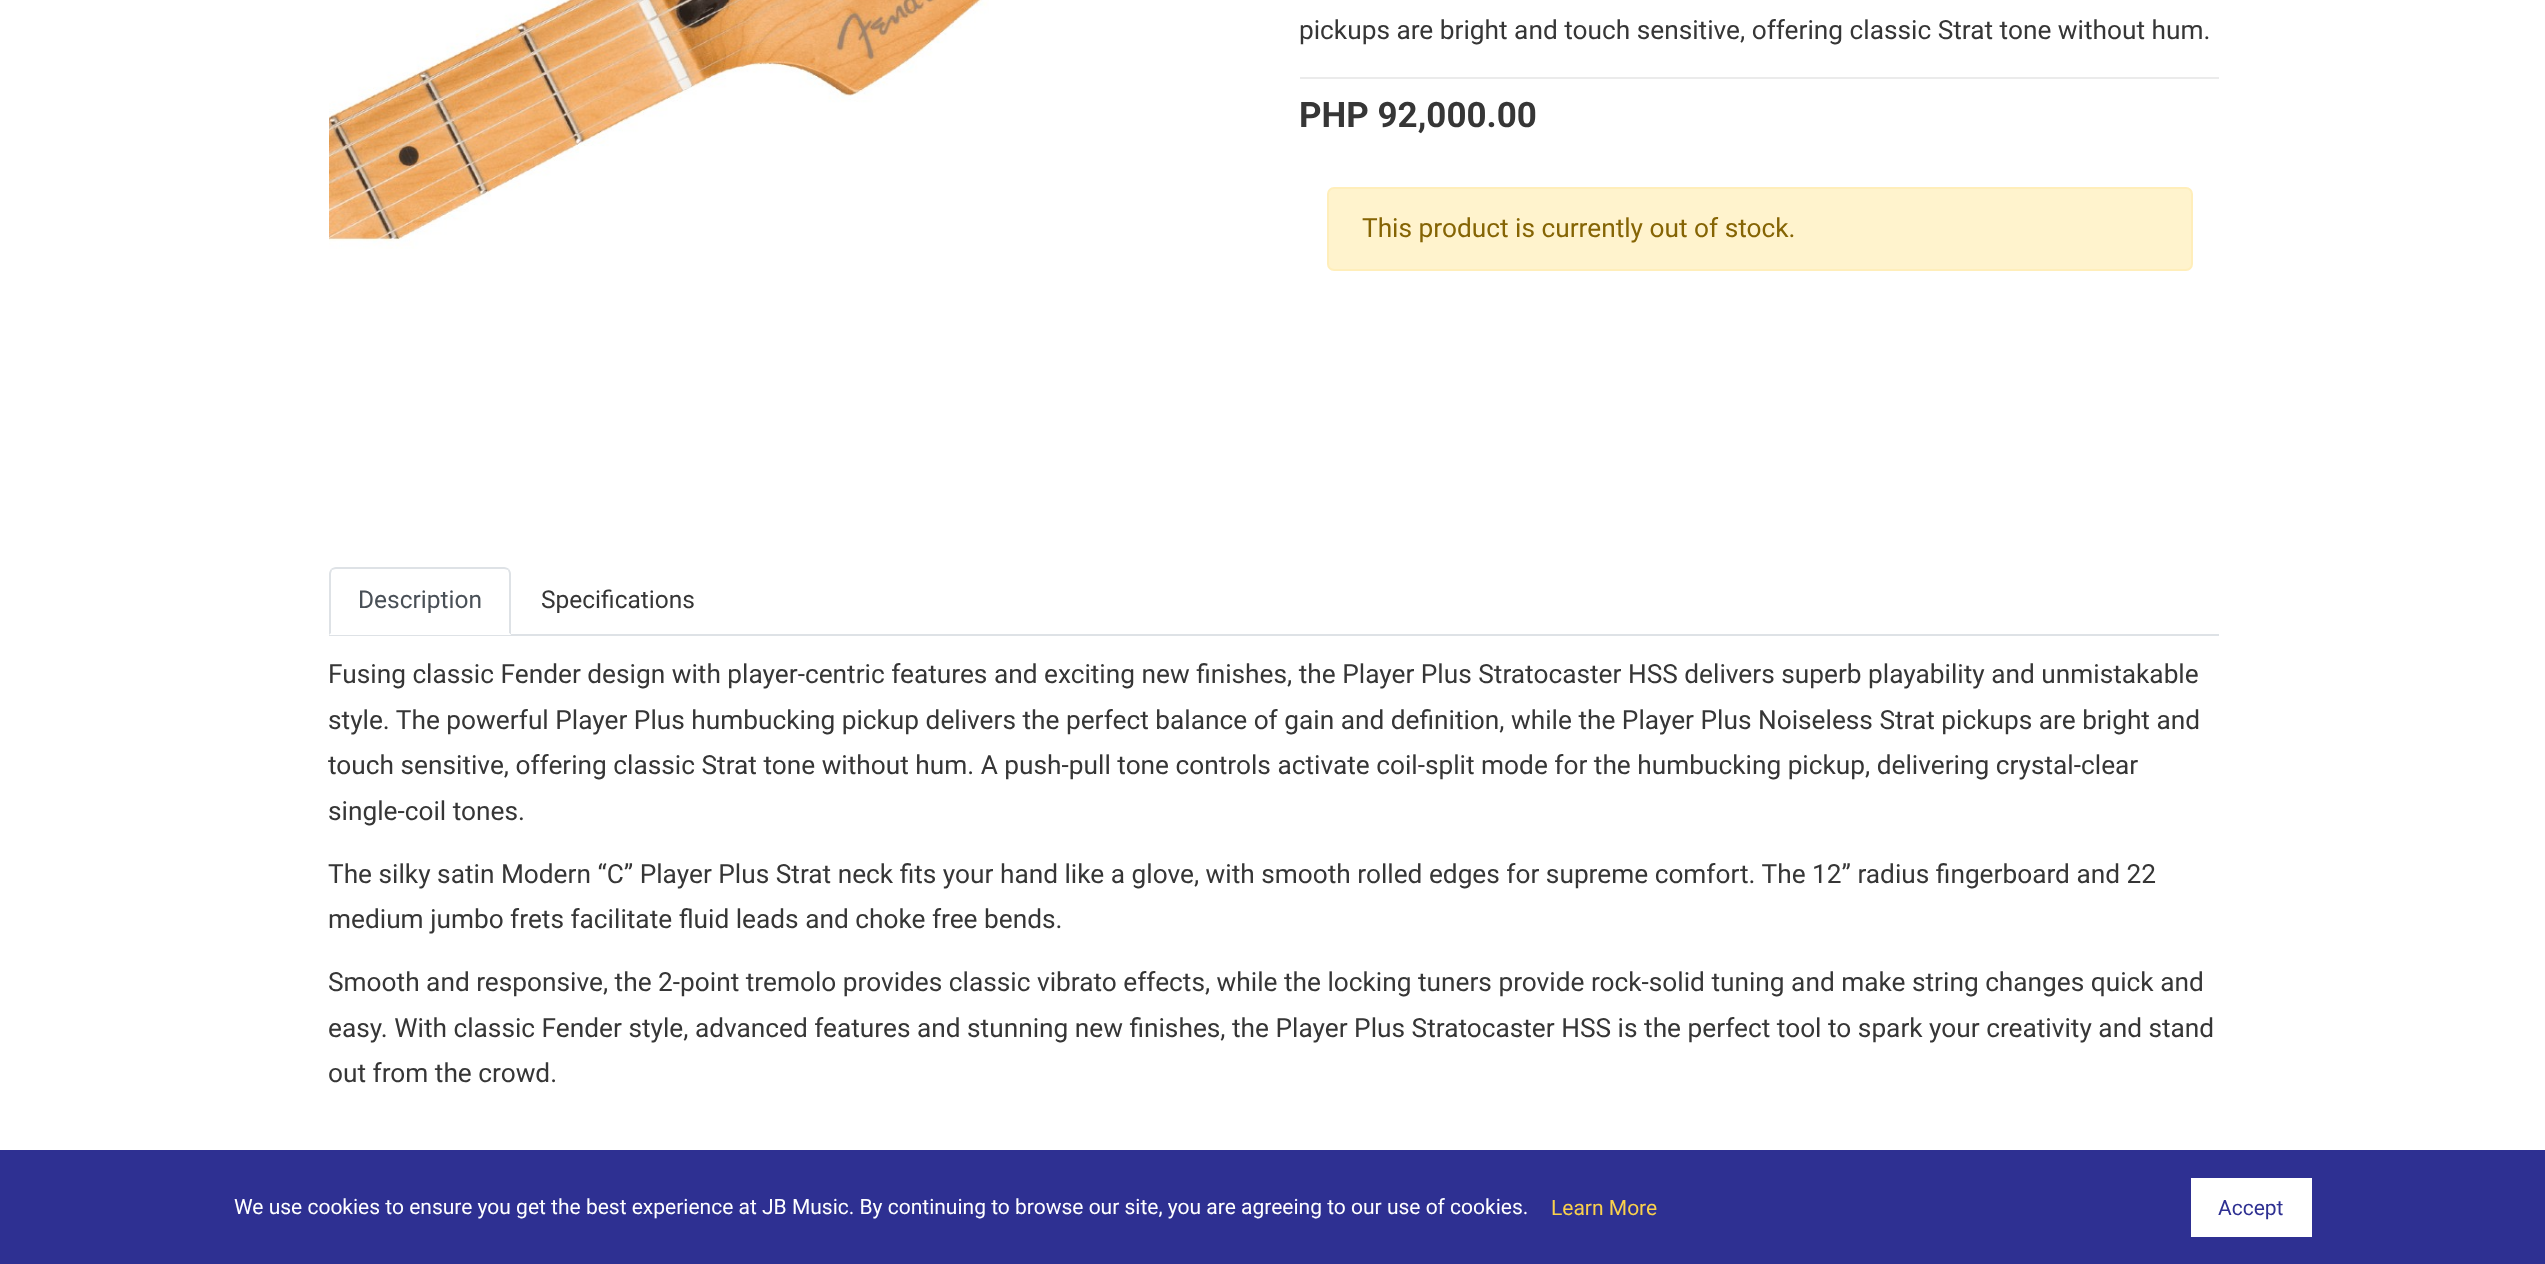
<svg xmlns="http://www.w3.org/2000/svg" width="2545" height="1264">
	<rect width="100%" height="100%" fill="#FFFFFF" />
	<image x="329" y="0" width="660" height="249" href="assets/img1.png" />
	<text x="1299" y="39" font-family="Roboto" font-size="26.25" fill="#363636">pickups are bright and touch sensitive, offering classic Strat tone without hum.</text>
	<rect x="1300" y="77" width="919" height="2" fill="#EBEBEB" />
	<text x="1299" y="127" font-family="Roboto" font-size="35" font-weight="700" fill="#363636">PHP 92,000.00</text>
	<rect x="1328" y="188" width="864" height="82" rx="6" fill="#FFF3CD" stroke="#FFEEBA" stroke-width="2" />
	<text x="1362" y="237" font-family="Roboto" font-size="26.25" fill="#856404">This product is currently out of stock.</text>
	<rect x="329" y="634" width="1890" height="2" fill="#DEE2E6" />
	<path d="M336 567H504C508 567 511 570 511 574V635H329V574C329 570 332 567 336 567Z" fill="#FFFFFF" />
	<path d="M336 567C334 567 332 568 331 569L332 570C333 570 334 569 336 569H504C506 569 507 570 508 570L509 569C508 568 506 567 504 567Z" fill="#DEE2E6" />
	<path d="M511 635V574C511 572 510 570 509 569L508 570C508 571 509 572 509 574V633Z" fill="#DEE2E6" />
	<path d="M511 635H329L331 633V634H509V633Z" fill="#FFFFFF" />
	<path d="M329 574V635L331 633V574C331 572 332 571 332 570L331 569C330 570 329 572 329 574Z" fill="#DEE2E6" />
	<text x="358" y="608" font-family="Roboto" font-size="24.5" fill="#495057">Description</text>
	<text x="541" y="608" font-family="Roboto" font-size="24.5" fill="#363636">Specifications</text>
	<g font-family="Roboto" font-size="26.25" fill="#363636">
		<text x="328" y="683">Fusing classic Fender design with player-centric features and exciting new finishes, the Player Plus Stratocaster HSS delivers superb playability and unmistakable</text>
		<text x="328" y="729">style. The powerful Player Plus humbucking pickup delivers the perfect balance of gain and definition, while the Player Plus Noiseless Strat pickups are bright and</text>
		<text x="328" y="774">touch sensitive, offering classic Strat tone without hum. A push-pull tone controls activate coil-split mode for the humbucking pickup, delivering crystal-clear</text>
		<text x="328" y="820">single-coil tones.</text>
		<text x="328" y="883">The silky satin Modern “C” Player Plus Strat neck fits your hand like a glove, with smooth rolled edges for supreme comfort. The 12” radius fingerboard and 22</text>
		<text x="328" y="928">medium jumbo frets facilitate fluid leads and choke free bends.</text>
		<text x="328" y="991">Smooth and responsive, the 2-point tremolo provides classic vibrato effects, while the locking tuners provide rock-solid tuning and make string changes quick and</text>
		<text x="328" y="1037">easy. With classic Fender style, advanced features and stunning new finishes, the Player Plus Stratocaster HSS is the perfect tool to spark your creativity and stand</text>
		<text x="328" y="1082">out from the crowd.</text>
	</g>
	<rect x="0" y="1150" width="2545" height="114" fill="#2E3092" />
	<text x="234" y="1214" font-family="Roboto" font-size="21" fill="#FFFFFF">We use cookies to ensure you get the best experience at JB Music. By continuing to browse our site, you are agreeing to our use of cookies.</text>
	<text x="1551" y="1215" font-family="Roboto" font-size="21" fill="#FAD04C">Learn More</text>
	<rect x="2191" y="1178" width="121" height="59" fill="#FFFFFF" />
	<text x="2218" y="1215" font-family="Roboto" font-size="21" fill="#2E3092">Accept</text>
</svg>
